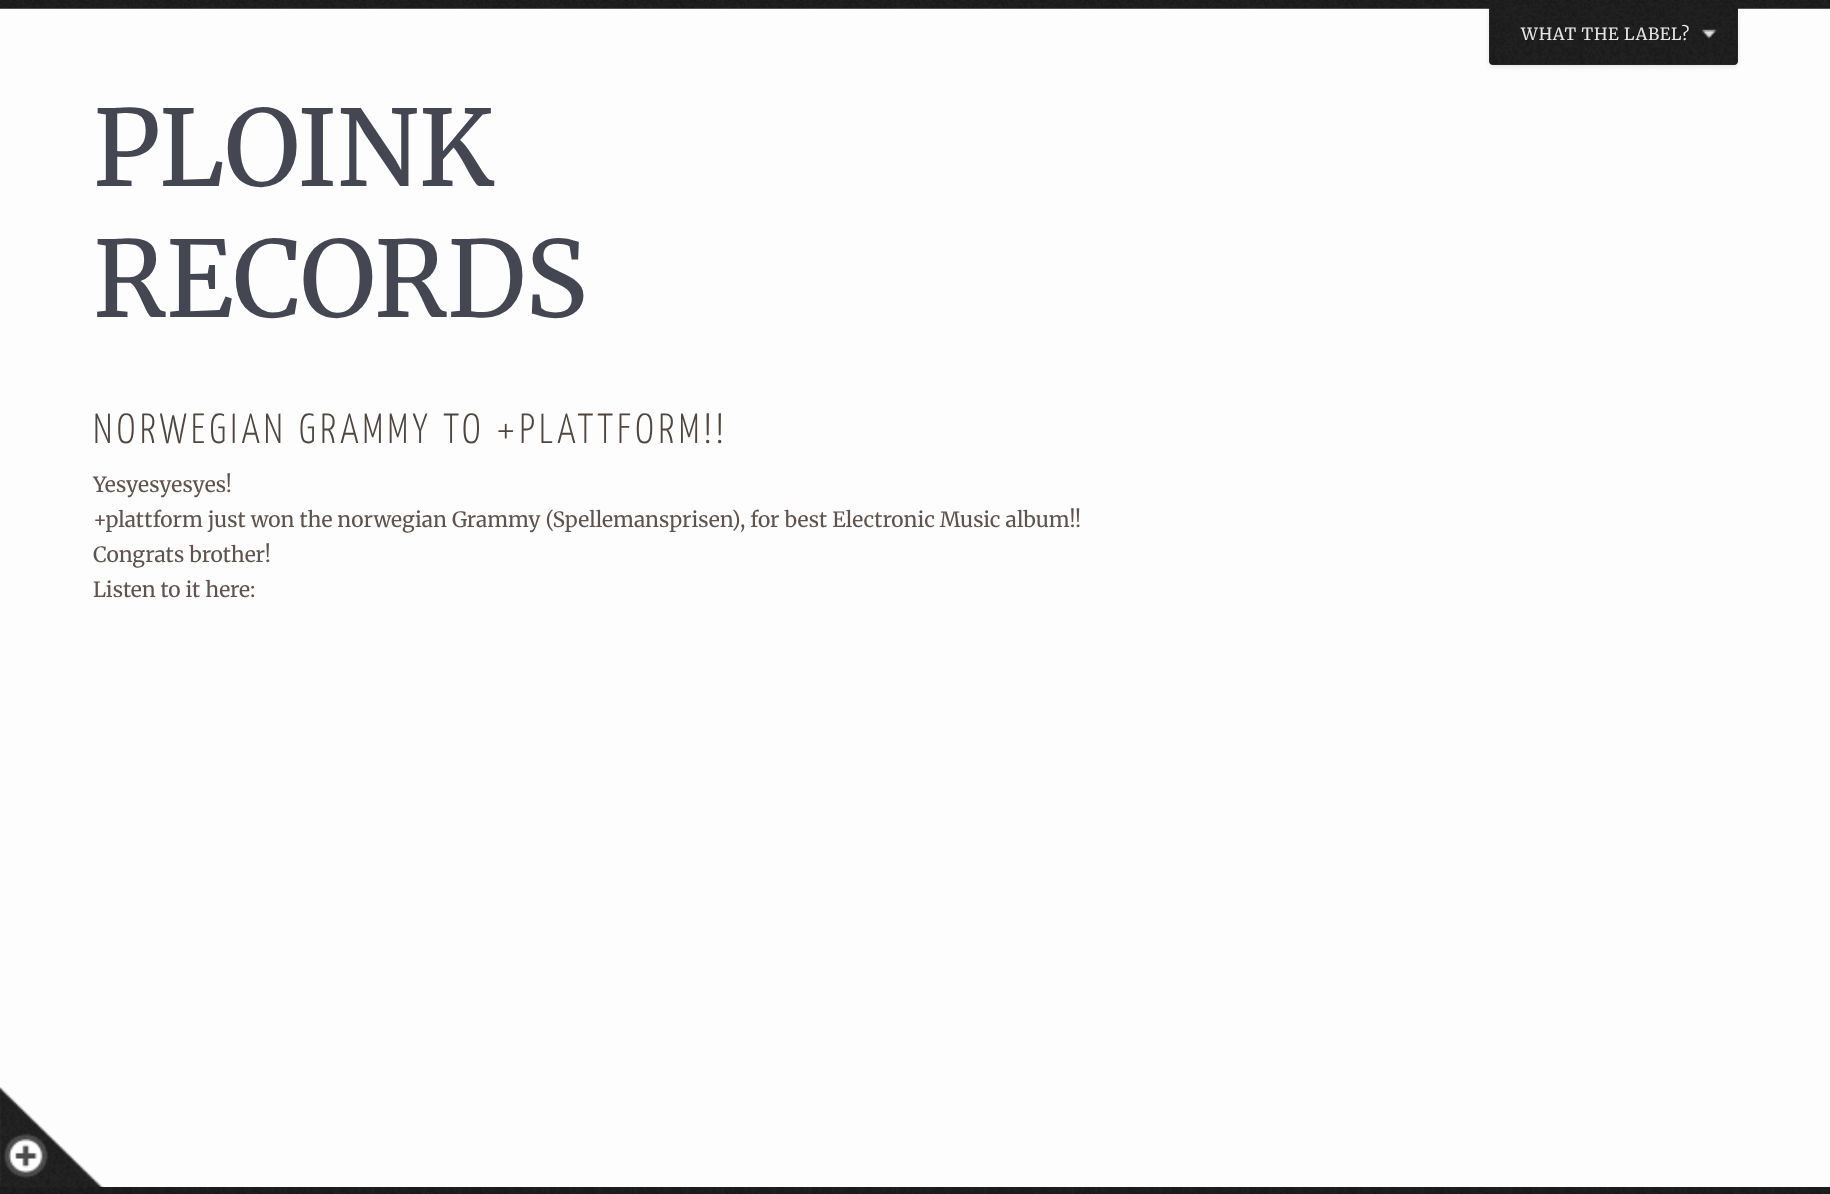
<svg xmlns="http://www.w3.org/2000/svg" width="1830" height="1194">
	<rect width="100%" height="100%" fill="#FDFDFD" />
	<rect x="1489" y="2" width="249" height="65" rx="4" fill="#000000" fill-opacity="0.09" filter="blur(2px)" />
	<path d="M1489 0H1738V61C1738 63 1736 65 1734 65H1493C1491 65 1489 63 1489 61Z" fill="#313236" />
	<image x="1489" y="8" width="249" height="57" href="assets/img2.png" />
	<image x="0" y="0" width="1830" height="9" href="assets/img1.png" />
	<text x="1521" y="40" font-family="Merriweather" font-size="16.75" font-weight="300" letter-spacing="0.7" fill="#E4E4E4">WHAT THE LABEL?</text>
	<image x="1701" y="29" width="16" height="11" href="assets/img3.png" />
	<g font-family="Merriweather" font-size="105" font-weight="300" fill="#444652">
		<text x="93" y="186">PLOINK</text>
		<text x="93" y="317">RECORDS</text>
	</g>
	<text x="93" y="443" font-family="Yanone Kaffeesatz" font-size="42" font-weight="200" letter-spacing="4.2" fill="#4F4640">NORWEGIAN GRAMMY TO +PLATTFORM!!</text>
	<g font-family="Merriweather" font-size="21" font-weight="300" fill="#5E534E">
		<text x="93" y="492">Yesyesyesyes!</text>
		<text x="93" y="527">+plattform just won the norwegian Grammy (Spellemansprisen), for best Electronic Music album!!</text>
		<text x="93" y="562">Congrats brother!</text>
		<text x="93" y="597">Listen to it here:</text>
	</g>
	<image x="0" y="1187" width="1830" height="7" href="assets/img6.png" />
	<image x="9" y="1190" width="1818" height="4" href="assets/img4.png" />
	<image x="0" y="1087" width="104" height="103" href="assets/img5.png" />
</svg>
